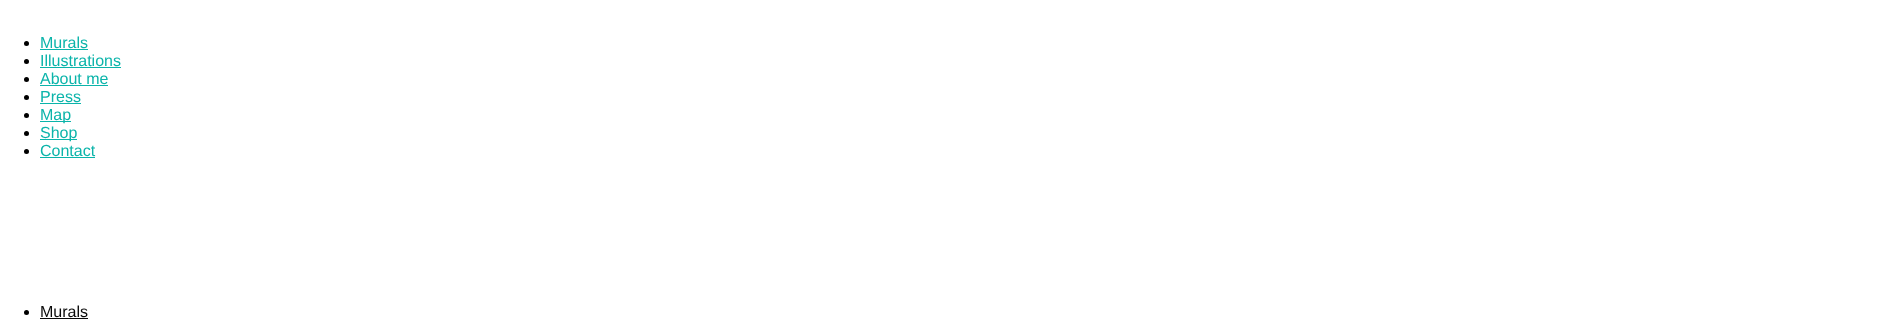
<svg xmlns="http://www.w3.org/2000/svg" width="1900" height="328">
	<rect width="100%" height="100%" fill="#FFFFFF" />
	<circle cx="26.5" cy="43.5" r="2.5" fill="#000000" />
	<text x="40" y="48" font-family="Liberation Sans" font-size="16" fill="#0BB4AA">Murals</text>
	<rect x="40" y="49" width="48" height="1" fill="#0BB4AA" />
	<circle cx="26.5" cy="61.5" r="2.5" fill="#000000" />
	<text x="40" y="66" font-family="Liberation Sans" font-size="16" fill="#0BB4AA">Illustrations</text>
	<rect x="40" y="67" width="81" height="1" fill="#0BB4AA" />
	<circle cx="26.5" cy="79.5" r="2.5" fill="#000000" />
	<text x="40" y="84" font-family="Liberation Sans" font-size="16" fill="#0BB4AA">About me</text>
	<rect x="40" y="85" width="68" height="1" fill="#0BB4AA" />
	<circle cx="26.5" cy="97.5" r="2.5" fill="#000000" />
	<text x="40" y="102" font-family="Liberation Sans" font-size="16" fill="#0BB4AA">Press</text>
	<rect x="40" y="103" width="41" height="1" fill="#0BB4AA" />
	<circle cx="26.5" cy="115.5" r="2.5" fill="#000000" />
	<rect x="40" y="121" width="31" height="1" fill="#0BB4AA" />
	<text x="40" y="120" font-family="Liberation Sans" font-size="16" fill="#0BB4AA">Map</text>
	<circle cx="26.5" cy="133.5" r="2.5" fill="#000000" />
	<rect x="40" y="139" width="37" height="1" fill="#0BB4AA" />
	<text x="40" y="138" font-family="Liberation Sans" font-size="16" fill="#0BB4AA">Shop</text>
	<circle cx="26.5" cy="151.5" r="2.5" fill="#000000" />
	<text x="40" y="156" font-family="Liberation Sans" font-size="16" fill="#0BB4AA">Contact</text>
	<rect x="40" y="157" width="55" height="1" fill="#0BB4AA" />
	<circle cx="26.5" cy="312.5" r="2.5" fill="#000000" />
	<text x="40" y="317" font-family="Liberation Sans" font-size="16" fill="#0A0A0A">Murals</text>
	<rect x="40" y="318" width="48" height="1" fill="#0A0A0A" />
</svg>
